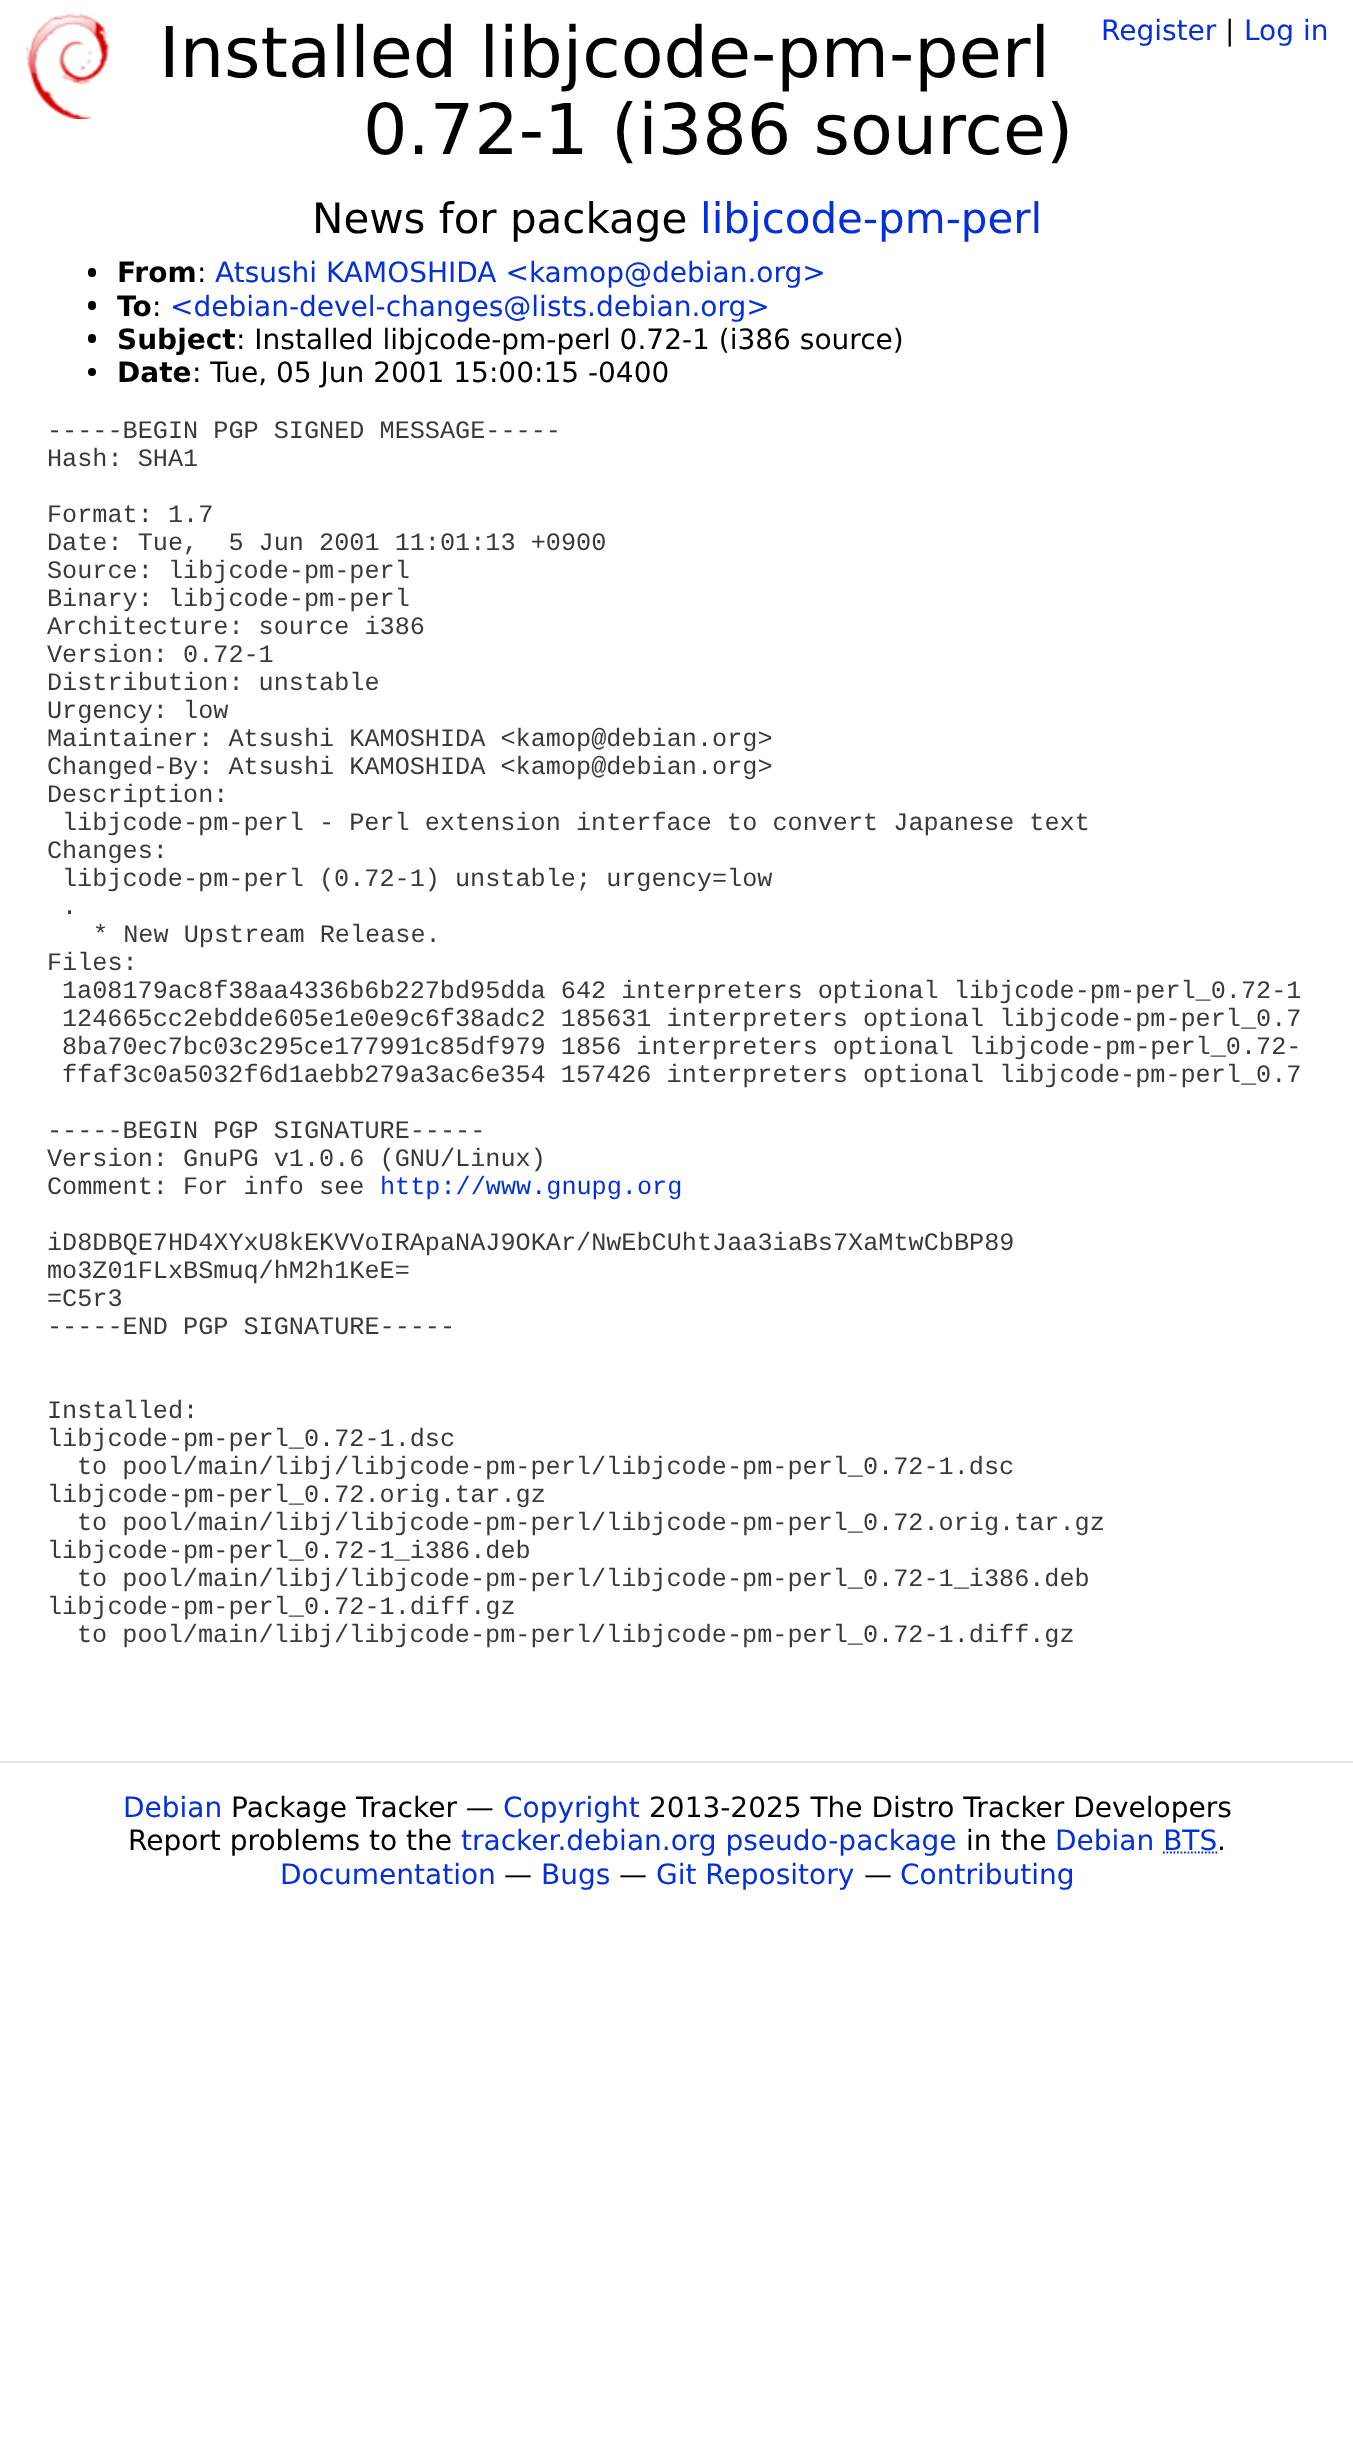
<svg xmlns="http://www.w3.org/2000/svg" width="1353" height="2456">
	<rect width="100%" height="100%" fill="#FFFFFF" />
	<image x="26" y="14" width="83" height="105" href="assets/img1.png" />
	<g font-family="DejaVu Sans" font-size="70" fill="#000000">
		<text x="159" y="77">Installed libjcode-pm-perl</text>
		<text x="363" y="154">0.72-1 (i386 source)</text>
	</g>
	<text x="1101" y="40" font-family="DejaVu Sans" font-size="28" fill="#0530D7">Register</text>
	<text x="1225" y="40" font-family="DejaVu Sans" font-size="28" fill="#000000">|</text>
	<text x="1244" y="40" font-family="DejaVu Sans" font-size="28" fill="#0530D7">Log in</text>
	<text x="312" y="233" font-family="DejaVu Sans" font-size="42" fill="#000000">News for package</text>
	<text x="700" y="233" font-family="DejaVu Sans" font-size="42" fill="#0530D7">libjcode-pm-perl</text>
	<rect x="88" y="268" width="8" height="9" rx="4" fill="#000000" />
	<text x="117" y="282" font-family="DejaVu Sans" font-size="28" font-weight="700" fill="#000000">From</text>
	<text x="197" y="282" font-family="DejaVu Sans" font-size="28" fill="#000000">:</text>
	<text x="215" y="282" font-family="DejaVu Sans" font-size="28" fill="#0530D7">Atsushi KAMOSHIDA &lt;kamop@debian.org&gt;</text>
	<rect x="88" y="301" width="8" height="9" rx="4" fill="#000000" />
	<text x="117" y="316" font-family="DejaVu Sans" font-size="28" font-weight="700" fill="#000000">To</text>
	<text x="152" y="316" font-family="DejaVu Sans" font-size="28" fill="#000000">:</text>
	<text x="170" y="316" font-family="DejaVu Sans" font-size="28" fill="#0530D7">&lt;debian-devel-changes@lists.debian.org&gt;</text>
	<rect x="88" y="334" width="8" height="9" rx="4" fill="#000000" />
	<text x="117" y="349" font-family="DejaVu Sans" font-size="28" font-weight="700" fill="#000000">Subject</text>
	<text x="236" y="349" font-family="DejaVu Sans" font-size="28" fill="#000000">: Installed libjcode-pm-perl 0.72-1 (i386 source)</text>
	<circle cx="92" cy="372" r="4" fill="#000000" />
	<text x="117" y="382" font-family="DejaVu Sans" font-size="28" font-weight="700" fill="#000000">Date</text>
	<text x="192" y="382" font-family="DejaVu Sans" font-size="28" fill="#000000">: Tue, 05 Jun 2001 15:00:15 -0400</text>
	<g font-family="Liberation Mono" font-size="25.2" fill="#373A3C">
		<text x="47" y="438">-----BEGIN PGP SIGNED MESSAGE-----</text>
		<text x="47" y="466">Hash: SHA1</text>
		<text x="47" y="522">Format: 1.7</text>
		<text x="47" y="550" xml:space="preserve">Date: Tue,  5 Jun 2001 11:01:13 +0900</text>
		<text x="47" y="578">Source: libjcode-pm-perl</text>
		<text x="47" y="606">Binary: libjcode-pm-perl</text>
		<text x="47" y="634">Architecture: source i386</text>
		<text x="47" y="662">Version: 0.72-1</text>
		<text x="47" y="690">Distribution: unstable</text>
		<text x="47" y="718">Urgency: low</text>
		<text x="47" y="746">Maintainer: Atsushi KAMOSHIDA &lt;kamop@debian.org&gt;</text>
		<text x="47" y="774">Changed-By: Atsushi KAMOSHIDA &lt;kamop@debian.org&gt;</text>
		<text x="47" y="802">Description:</text>
		<text x="62" y="830">libjcode-pm-perl - Perl extension interface to convert Japanese text</text>
		<text x="47" y="858">Changes:</text>
		<text x="62" y="886">libjcode-pm-perl (0.72-1) unstable; urgency=low</text>
		<text x="62" y="914">.</text>
		<text x="93" y="942">* New Upstream Release.</text>
		<text x="47" y="970">Files:</text>
		<text x="62" y="998">1a08179ac8f38aa4336b6b227bd95dda 642 interpreters optional libjcode-pm-perl_0.72-1</text>
		<text x="62" y="1026">124665cc2ebdde605e1e0e9c6f38adc2 185631 interpreters optional libjcode-pm-perl_0.7</text>
		<text x="62" y="1054">8ba70ec7bc03c295ce177991c85df979 1856 interpreters optional libjcode-pm-perl_0.72-</text>
		<text x="62" y="1082">ffaf3c0a5032f6d1aebb279a3ac6e354 157426 interpreters optional libjcode-pm-perl_0.7</text>
		<text x="47" y="1138">-----BEGIN PGP SIGNATURE-----</text>
		<text x="47" y="1166">Version: GnuPG v1.0.6 (GNU/Linux)</text>
		<text x="47" y="1194">Comment: For info see</text>
	</g>
	<text x="380" y="1194" font-family="Liberation Mono" font-size="25.2" fill="#0530D7">http://www.gnupg.org</text>
	<g font-family="Liberation Mono" font-size="25.2" fill="#373A3C">
		<text x="47" y="1250">iD8DBQE7HD4XYxU8kEKVVoIRApaNAJ9OKAr/NwEbCUhtJaa3iaBs7XaMtwCbBP89</text>
		<text x="47" y="1278">mo3Z01FLxBSmuq/hM2h1KeE=</text>
		<text x="47" y="1306">=C5r3</text>
		<text x="47" y="1334">-----END PGP SIGNATURE-----</text>
		<text x="47" y="1418">Installed:</text>
		<text x="47" y="1446">libjcode-pm-perl_0.72-1.dsc</text>
		<text x="77" y="1474">to pool/main/libj/libjcode-pm-perl/libjcode-pm-perl_0.72-1.dsc</text>
		<text x="47" y="1502">libjcode-pm-perl_0.72.orig.tar.gz</text>
		<text x="77" y="1530">to pool/main/libj/libjcode-pm-perl/libjcode-pm-perl_0.72.orig.tar.gz</text>
		<text x="47" y="1558">libjcode-pm-perl_0.72-1_i386.deb</text>
		<text x="77" y="1586">to pool/main/libj/libjcode-pm-perl/libjcode-pm-perl_0.72-1_i386.deb</text>
		<text x="47" y="1614">libjcode-pm-perl_0.72-1.diff.gz</text>
		<text x="77" y="1642">to pool/main/libj/libjcode-pm-perl/libjcode-pm-perl_0.72-1.diff.gz</text>
	</g>
	<rect x="0" y="1761" width="1353" height="2" fill="#E6E6E6" />
	<text x="123" y="1817" font-family="DejaVu Sans" font-size="28" fill="#0530D7">Debian</text>
	<text x="231" y="1817" font-family="DejaVu Sans" font-size="28" fill="#000000">Package Tracker —</text>
	<text x="503" y="1817" font-family="DejaVu Sans" font-size="28" fill="#0530D7">Copyright</text>
	<g font-family="DejaVu Sans" font-size="28" fill="#000000">
		<text x="649" y="1817">2013-2025 The Distro Tracker Developers</text>
		<text x="128" y="1850">Report problems to the</text>
	</g>
	<text x="461" y="1850" font-family="DejaVu Sans" font-size="28" fill="#0530D7">tracker.debian.org pseudo-package</text>
	<text x="966" y="1850" font-family="DejaVu Sans" font-size="28" fill="#000000">in the</text>
	<text x="1055" y="1850" font-family="DejaVu Sans" font-size="28" fill="#0530D7">Debian BTS</text>
	<path d="M1163 1852.5H1217.5" fill="none" stroke="#0530D7" stroke-width="1.8" stroke-dasharray="1.75 1.75" />
	<text x="1217" y="1850" font-family="DejaVu Sans" font-size="28" fill="#000000">.</text>
	<text x="280" y="1884" font-family="DejaVu Sans" font-size="28" fill="#0530D7">Documentation</text>
	<text x="504" y="1884" font-family="DejaVu Sans" font-size="28" fill="#000000">—</text>
	<text x="541" y="1884" font-family="DejaVu Sans" font-size="28" fill="#0530D7">Bugs</text>
	<text x="619" y="1884" font-family="DejaVu Sans" font-size="28" fill="#000000">—</text>
	<text x="656" y="1884" font-family="DejaVu Sans" font-size="28" fill="#0530D7">Git Repository</text>
	<text x="864" y="1884" font-family="DejaVu Sans" font-size="28" fill="#000000">—</text>
	<text x="900" y="1884" font-family="DejaVu Sans" font-size="28" fill="#0530D7">Contributing</text>
</svg>
